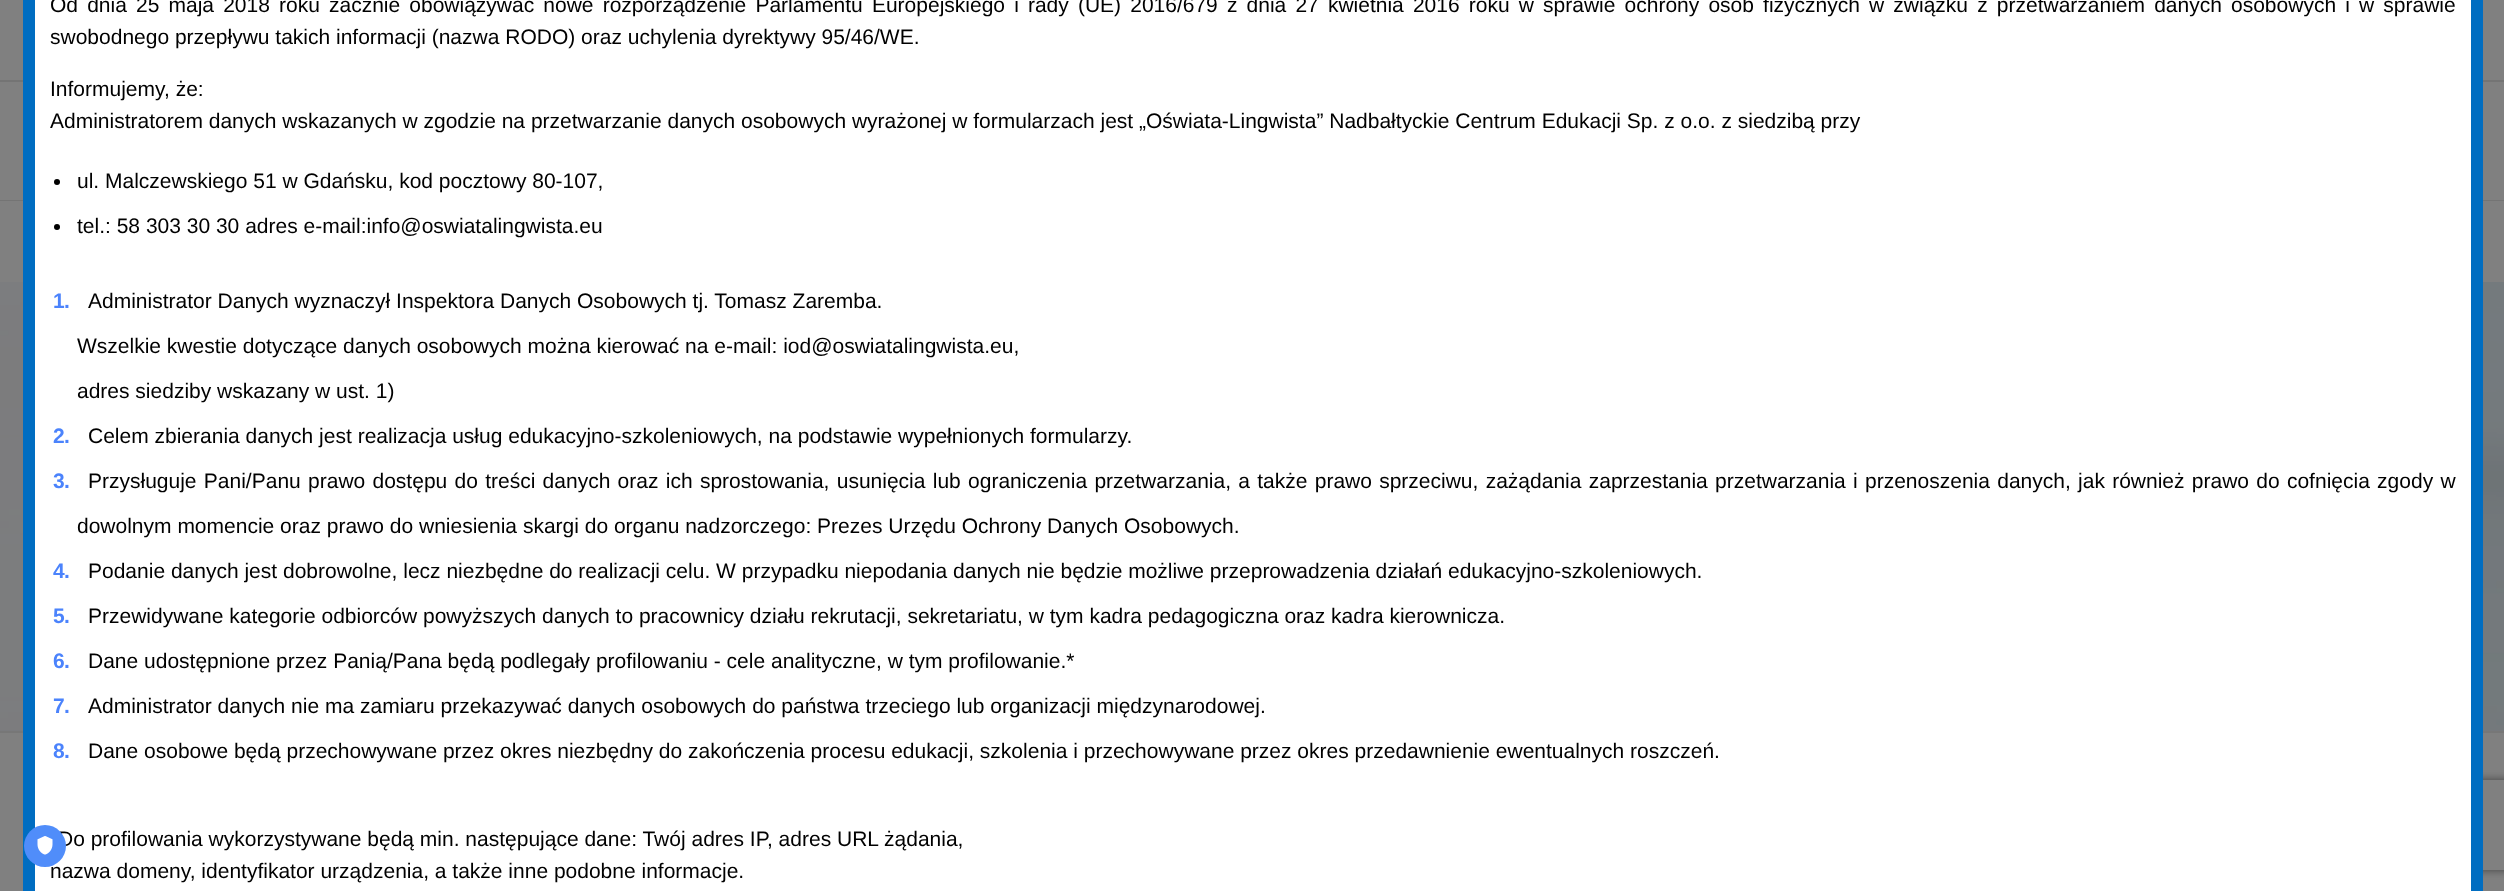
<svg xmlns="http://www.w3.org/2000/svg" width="2504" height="891">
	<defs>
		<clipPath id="clip1"><path d="M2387 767H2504V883H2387ZM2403 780H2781C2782.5 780 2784 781.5 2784 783V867C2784 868.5 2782.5 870 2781 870H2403C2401.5 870 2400 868.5 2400 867V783C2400 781.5 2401.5 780 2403 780Z" clip-rule="evenodd" /></clipPath>
	</defs>
	<rect width="100%" height="100%" fill="#808080" />
	<rect x="0" y="80" width="2504" height="2" fill="#747474" />
	<rect x="0" y="200" width="2504" height="1" fill="#747474" />
	<rect x="0" y="730" width="2504" height="1" fill="#787B7E" />
	<image x="0" y="282" width="2504" height="449" href="assets/img1.png" />
	<rect x="0" y="731" width="2504" height="2" fill="#777777" />
	<g clip-path="url(#clip1)">
		<rect x="2400" y="780" width="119" height="90" rx="3" fill="#404040" filter="blur(4px)" />
	</g>
	<rect x="29" y="-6" width="2448" height="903" fill="#FFFFFF" stroke="#006DC1" stroke-width="12" />
	<g font-family="Liberation Sans" font-size="21" fill="#000000">
		<text x="50" y="12" word-spacing="3.3">Od dnia 25 maja 2018 roku zacznie obowiązywać nowe rozporządzenie Parlamentu Europejskiego i rady (UE) 2016/679 z dnia 27 kwietnia 2016 roku w sprawie ochrony osób fizycznych w związku z przetwarzaniem danych osobowych i w sprawie</text>
		<text x="50" y="44">swobodnego przepływu takich informacji (nazwa RODO) oraz uchylenia dyrektywy 95/46/WE.</text>
		<text x="50" y="96">Informujemy, że:</text>
		<text x="50" y="128">Administratorem danych wskazanych w zgodzie na przetwarzanie danych osobowych wyrażonej w formularzach jest „Oświata-Lingwista” Nadbałtyckie Centrum Edukacji Sp. z o.o. z siedzibą przy</text>
	</g>
	<circle cx="57" cy="182" r="3" fill="#000000" />
	<text x="77" y="188" font-family="Liberation Sans" font-size="21" fill="#000000">ul. Malczewskiego 51 w Gdańsku, kod pocztowy 80-107,</text>
	<circle cx="57" cy="227" r="3" fill="#000000" />
	<text x="77" y="233" font-family="Liberation Sans" font-size="21" fill="#000000">tel.: 58 303 30 30 adres e-mail:info@oswiatalingwista.eu</text>
	<g font-family="Liberation Sans" font-size="21" font-weight="700" fill="#4B83FC">
		<text x="53" y="308">1</text>
		<text x="64" y="308">.</text>
	</g>
	<g font-family="Liberation Sans" font-size="21" fill="#000000">
		<text x="88" y="308">Administrator Danych wyznaczył Inspektora Danych Osobowych tj. Tomasz Zaremba.</text>
		<text x="77" y="353">Wszelkie kwestie dotyczące danych osobowych można kierować na e-mail: iod@oswiatalingwista.eu,</text>
		<text x="77" y="398">adres siedziby wskazany w ust. 1)</text>
	</g>
	<g font-family="Liberation Sans" font-size="21" font-weight="700" fill="#4B83FC">
		<text x="53" y="443">2</text>
		<text x="64" y="443">.</text>
	</g>
	<text x="88" y="443" font-family="Liberation Sans" font-size="21" fill="#000000">Celem zbierania danych jest realizacja usług edukacyjno-szkoleniowych, na podstawie wypełnionych formularzy.</text>
	<g font-family="Liberation Sans" font-size="21" font-weight="700" fill="#4B83FC">
		<text x="53" y="488">3</text>
		<text x="64" y="488">.</text>
	</g>
	<g font-family="Liberation Sans" font-size="21" fill="#000000">
		<text x="88" y="488" word-spacing="1.45">Przysługuje Pani/Panu prawo dostępu do treści danych oraz ich sprostowania, usunięcia lub ograniczenia przetwarzania, a także prawo sprzeciwu, zażądania zaprzestania przetwarzania i przenoszenia danych, jak również prawo do cofnięcia zgody w</text>
		<text x="77" y="533">dowolnym momencie oraz prawo do wniesienia skargi do organu nadzorczego: Prezes Urzędu Ochrony Danych Osobowych.</text>
	</g>
	<g font-family="Liberation Sans" font-size="21" font-weight="700" fill="#4B83FC">
		<text x="53" y="578">4</text>
		<text x="64" y="578">.</text>
	</g>
	<text x="88" y="578" font-family="Liberation Sans" font-size="21" fill="#000000">Podanie danych jest dobrowolne, lecz niezbędne do realizacji celu. W przypadku niepodania danych nie będzie możliwe przeprowadzenia działań edukacyjno-szkoleniowych.</text>
	<g font-family="Liberation Sans" font-size="21" font-weight="700" fill="#4B83FC">
		<text x="53" y="623">5</text>
		<text x="64" y="623">.</text>
	</g>
	<text x="88" y="623" font-family="Liberation Sans" font-size="21" fill="#000000">Przewidywane kategorie odbiorców powyższych danych to pracownicy działu rekrutacji, sekretariatu, w tym kadra pedagogiczna oraz kadra kierownicza.</text>
	<g font-family="Liberation Sans" font-size="21" font-weight="700" fill="#4B83FC">
		<text x="53" y="668">6</text>
		<text x="64" y="668">.</text>
	</g>
	<text x="88" y="668" font-family="Liberation Sans" font-size="21" fill="#000000">Dane udostępnione przez Panią/Pana będą podlegały profilowaniu - cele analityczne, w tym profilowanie.*</text>
	<g font-family="Liberation Sans" font-size="21" font-weight="700" fill="#4B83FC">
		<text x="53" y="713">7</text>
		<text x="64" y="713">.</text>
	</g>
	<text x="88" y="713" font-family="Liberation Sans" font-size="21" fill="#000000">Administrator danych nie ma zamiaru przekazywać danych osobowych do państwa trzeciego lub organizacji międzynarodowej.</text>
	<g font-family="Liberation Sans" font-size="21" font-weight="700" fill="#4B83FC">
		<text x="53" y="758">8</text>
		<text x="64" y="758">.</text>
	</g>
	<g font-family="Liberation Sans" font-size="21" fill="#000000">
		<text x="88" y="758">Dane osobowe będą przechowywane przez okres niezbędny do zakończenia procesu edukacji, szkolenia i przechowywane przez okres przedawnienie ewentualnych roszczeń.</text>
		<text x="58" y="846">Do profilowania wykorzystywane będą min. następujące dane: Twój adres IP, adres URL żądania,</text>
		<text x="50" y="878">nazwa domeny, identyfikator urządzenia, a także inne podobne informacje.</text>
	</g>
	<circle cx="45" cy="846" r="21" fill="#508DFA" />
	<image x="37" y="836" width="16" height="19" href="assets/img2.png" />
</svg>
